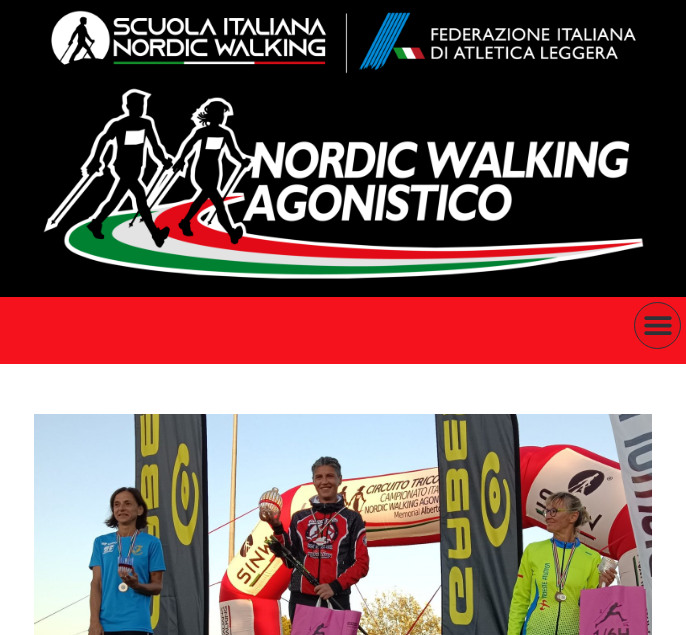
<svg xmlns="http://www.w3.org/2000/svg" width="686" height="635">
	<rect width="100%" height="100%" fill="#FFFFFF" />
	<rect x="0" y="0" width="686" height="297" fill="#000000" />
	<image x="51" y="10" width="585" height="64" href="assets/img1.png" />
	<image x="43" y="88" width="601" height="191" href="assets/img2.png" />
	<rect x="0" y="297" width="686" height="67" fill="#F6121C" />
	<circle cx="657.5" cy="325.5" r="23" fill="#EA111B" stroke="#2E3237" />
	<image x="644" y="316" width="28" height="19" href="assets/img3.png" />
	<image x="34" y="414" width="618" height="221" href="assets/img4.png" />
</svg>
